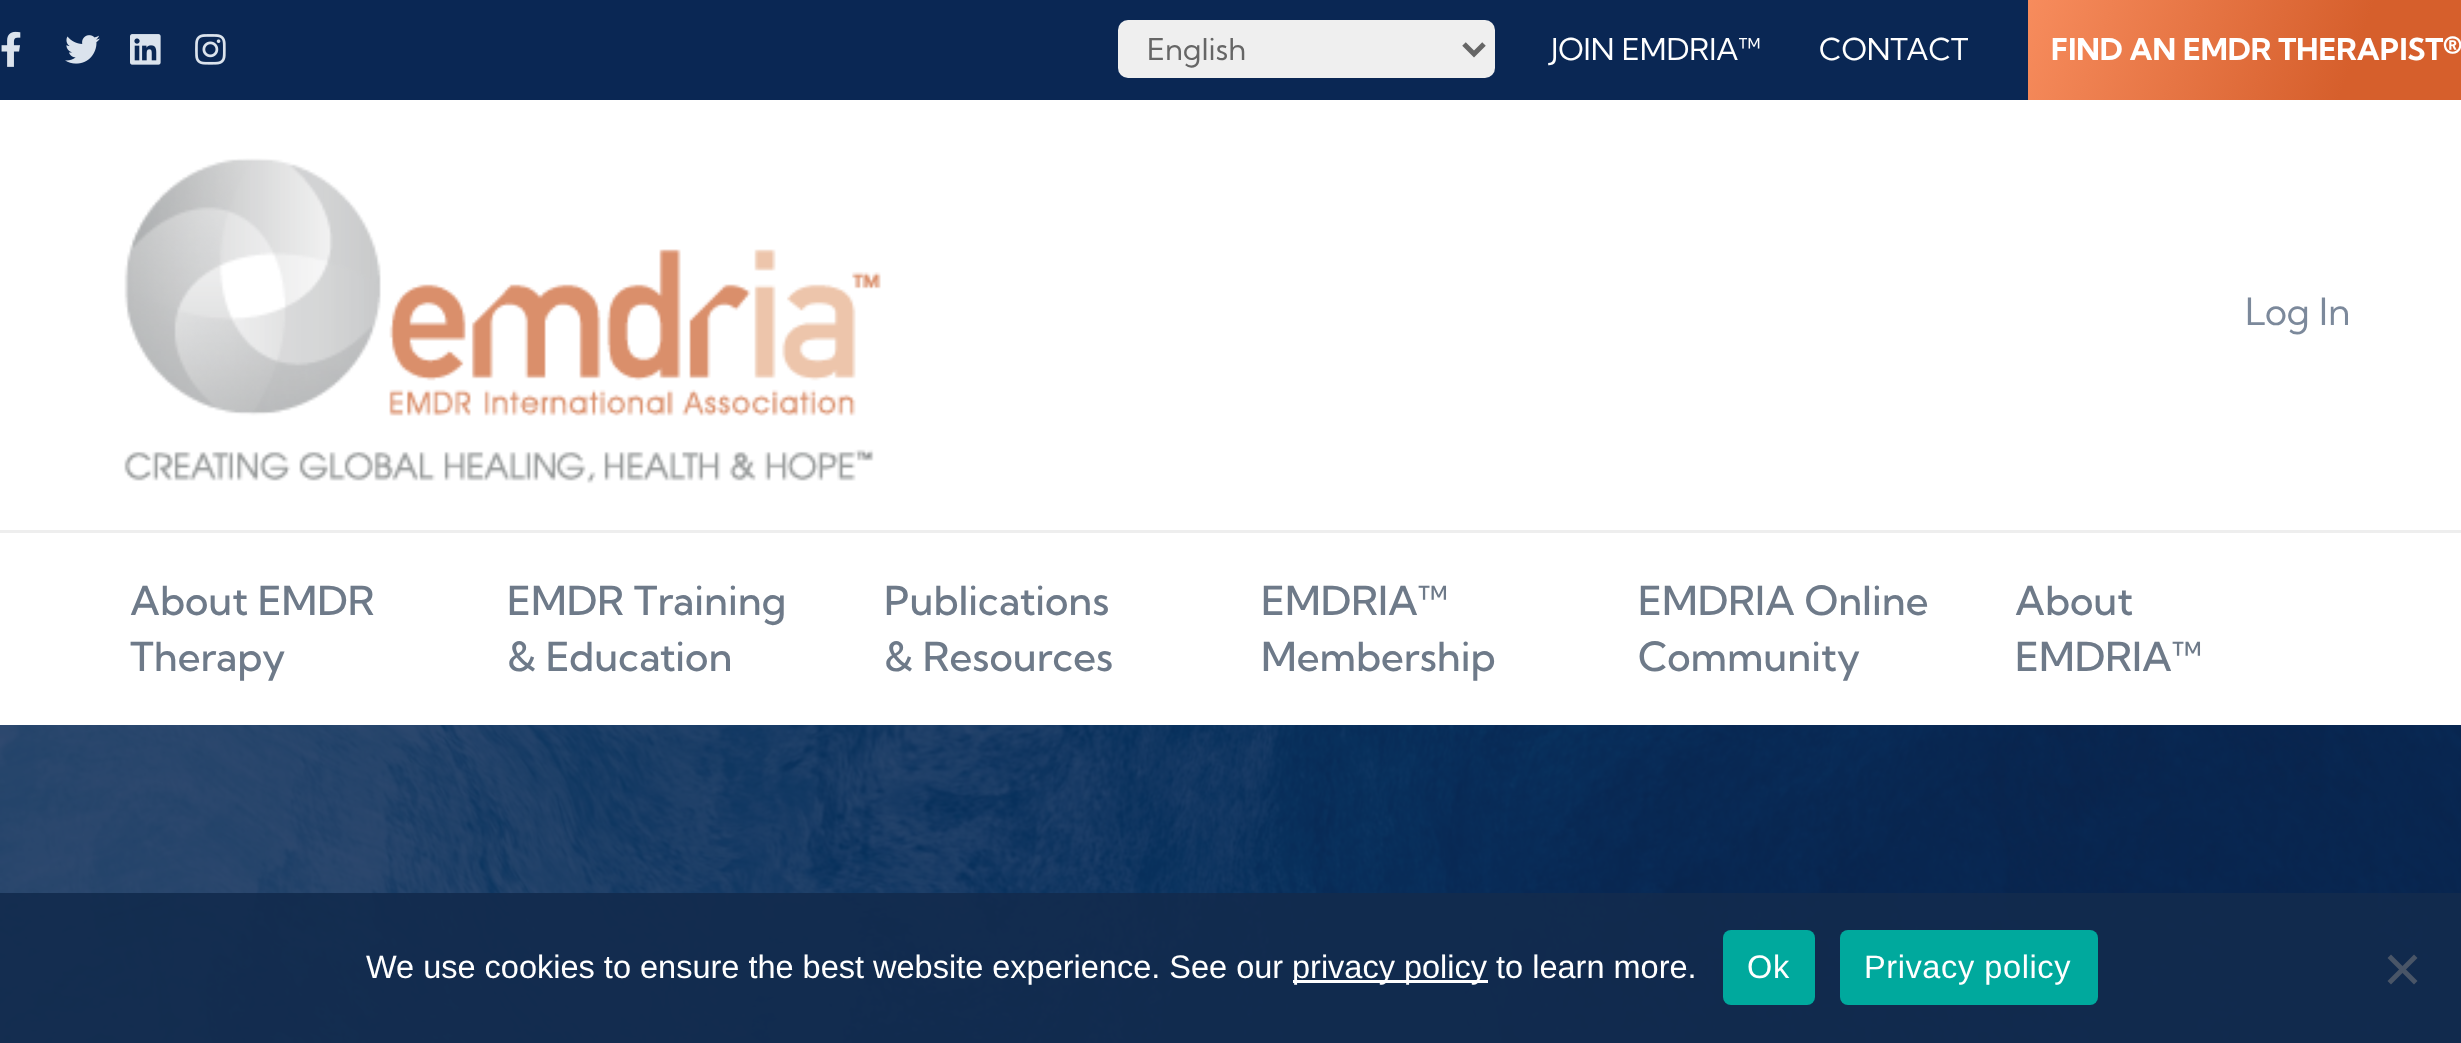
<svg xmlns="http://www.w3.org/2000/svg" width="2461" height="1043">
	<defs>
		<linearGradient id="g1" gradientUnits="userSpaceOnUse" x1="2038" y1="-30" x2="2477" y2="130"><stop offset="0" stop-color="#F78C5D" /><stop offset="0.7" stop-color="#D65F2C" /></linearGradient>
	</defs>
	<rect width="100%" height="100%" fill="#0A2754" />
	<image x="1" y="31" width="20" height="36" href="assets/img1.png" />
	<image x="65" y="35" width="35" height="29" href="assets/img2.png" />
	<image x="130" y="34" width="31" height="31" href="assets/img3.png" />
	<image x="195" y="34" width="31" height="31" href="assets/img4.png" />
	<rect x="1118" y="20" width="377" height="58" rx="10" fill="#EFEFEF" />
	<path d="M1464 44L1474 54L1484 44" fill="none" stroke="#666666" stroke-width="5" />
	<text x="1147" y="60" font-family="Kumbh Sans" font-size="30" fill="#666666">English</text>
	<g font-family="Kumbh Sans" font-size="30" fill="#FFFFFF">
		<text x="1551" y="60">JOIN EMDRIA™</text>
		<text x="1819" y="60">CONTACT</text>
	</g>
	<rect x="2028" y="0" width="433" height="100" fill="url(#g1)" />
	<text x="2051" y="60" font-family="Kumbh Sans" font-size="30" font-weight="700" fill="#FFFFFF">FIND AN EMDR THERAPIST®</text>
	<rect x="0" y="100" width="2461" height="625" fill="#FFFFFF" />
	<image x="124" y="158" width="757" height="326" href="assets/img5.png" />
	<text x="2245" y="325" font-family="Kumbh Sans" font-size="37.5" fill="#7C899B">Log In</text>
	<rect x="0" y="530" width="2461" height="3" fill="#EEEEEE" />
	<g font-family="Kumbh Sans" font-size="40" font-weight="500" fill="#6E7A89">
		<text x="130" y="615">About EMDR</text>
		<text x="130" y="671">Therapy</text>
		<text x="507" y="615">EMDR Training</text>
		<text x="507" y="671">&amp; Education</text>
		<text x="884" y="615">Publications</text>
		<text x="884" y="671">&amp; Resources</text>
		<text x="1261" y="615">EMDRIA™</text>
		<text x="1261" y="671">Membership</text>
		<text x="1638" y="615">EMDRIA Online</text>
		<text x="1638" y="671">Community</text>
		<text x="2015" y="615">About</text>
		<text x="2015" y="671">EMDRIA™</text>
	</g>
	<image x="0" y="725" width="2461" height="318" href="assets/img6.png" />
	<rect x="0" y="893" width="2461" height="150" fill="#122B4D" fill-opacity="0.93" />
	<text x="366" y="978" font-family="Liberation Sans" font-size="32.5" fill="#FFFFFF">We use cookies to ensure the best website experience. See our</text>
	<rect x="1293" y="980" width="195" height="3" fill="#FFFFFF" />
	<text x="1292" y="978" font-family="Liberation Sans" font-size="32.5" fill="#FFFFFF">privacy policy to learn more.</text>
	<rect x="1723" y="930" width="92" height="75" rx="8" fill="#00A99D" />
	<text x="1747" y="978" font-family="Liberation Sans" font-size="32.5" letter-spacing="0.6" fill="#FFFFFF">Ok</text>
	<rect x="1840" y="930" width="258" height="75" rx="8" fill="#00A99D" />
	<text x="1864" y="978" font-family="Liberation Sans" font-size="32.5" letter-spacing="0.6" fill="#FFFFFF">Privacy policy</text>
	<path d="M2414 954.5L2417.5 958L2391 984.5L2387.5 981Z" fill="#495567" />
	<path d="M2387.5 958L2391 954.5L2417.5 981L2414 984.5Z" fill="#495567" />
</svg>
